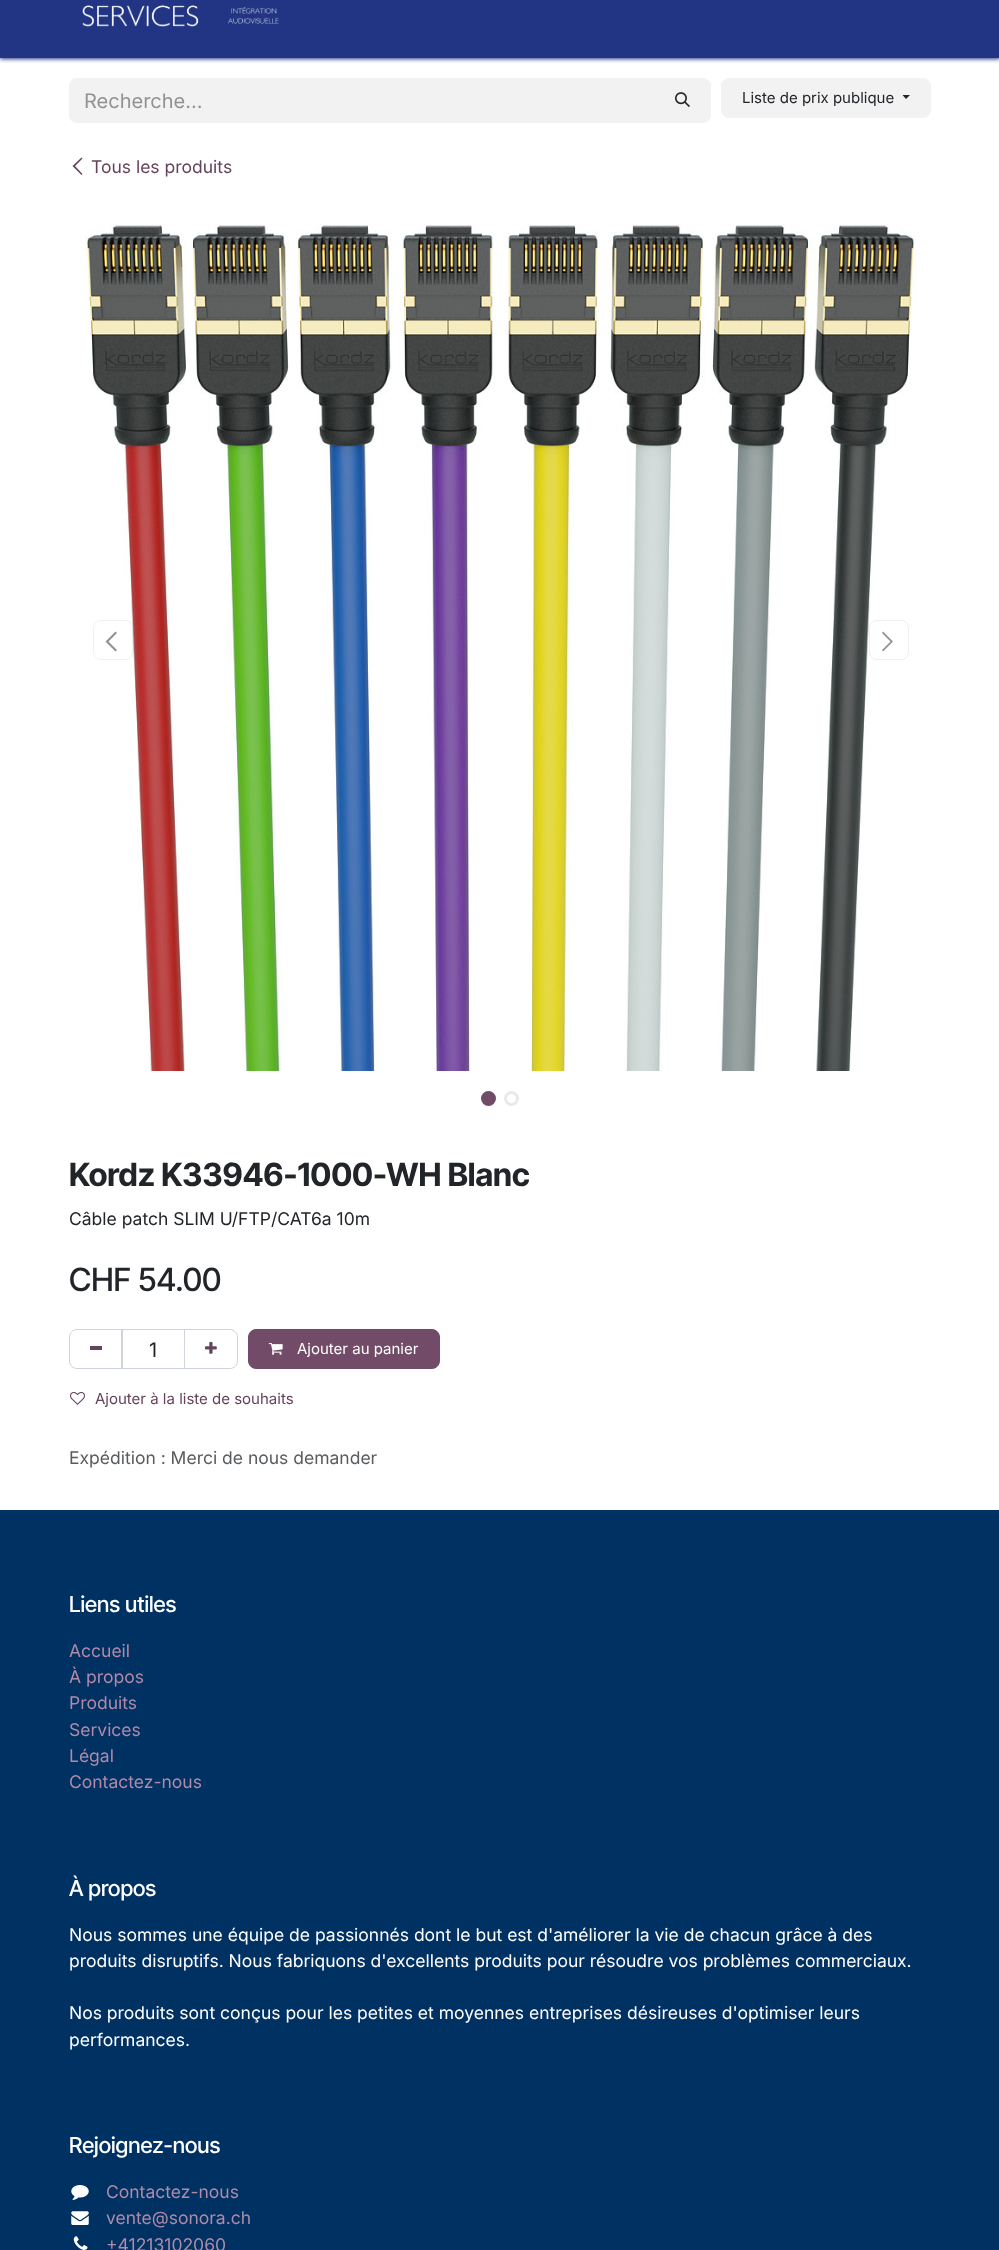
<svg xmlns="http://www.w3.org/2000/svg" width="999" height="2250">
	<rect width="100%" height="100%" fill="#FFFFFF" />
	<rect x="0" y="-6" width="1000" height="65" fill="#213584" filter="blur(2px)" />
	<rect x="0" y="0" width="999" height="58" fill="#213584" />
	<image x="82" y="5" width="197" height="22" href="assets/img1.png" />
	<path d="M77 78H655V123H77C72.5 123 69 119.5 69 115V86C69 81.5 72.5 78 77 78Z" fill="#F3F2F2" />
	<text x="84" y="108" font-family="Inter" font-size="20" fill="#909294">Recherche…</text>
	<path d="M654.5 78.5H703C707 78.5 710.5 82 710.5 86V115C710.5 119 707 122.5 703 122.5H654.5Z" fill="#F3F2F2" stroke="#F3F2F2" />
	<image x="675" y="92" width="15" height="15" href="assets/img2.png" />
	<rect x="721.5" y="78.5" width="209" height="39" rx="7.5" fill="#F3F2F2" stroke="#F3F2F2" />
	<text x="742" y="103" font-family="Inter" font-size="15" fill="#212529">Liste de prix publique</text>
	<path d="M902.5 95H910L906 99Z" fill="#212529" />
	<path d="M72.5 166L81.5 157.5L82.5 158.5L75 166L82.5 174L81.5 175Z" fill="#65435C" />
	<text x="91" y="173" font-family="Inter" font-size="17.5" fill="#65435C">Tous les produits</text>
	<image x="84" y="223" width="833" height="848" href="assets/img3.png" />
	<rect x="93" y="620" width="40" height="40" rx="8" fill="#FFFFFF" fill-opacity="0.5" />
	<rect x="93.5" y="620.5" width="39" height="39" rx="7.5" fill="none" stroke="#212529" stroke-opacity="0.07" />
	<path d="M105.5 641.5L115.5 631.5L117 633L108.5 641.5L117 650L115.5 651.5Z" fill="#909294" />
	<rect x="869.5" y="620.5" width="39" height="39" rx="7.5" fill="none" stroke="#EEEFEF" />
	<path d="M893 641.5L883 651.5L882 650L890.5 641.5L882 633L883 631.5Z" fill="#909294" />
	<circle cx="488.5" cy="1098.5" r="6" fill="#714B67" stroke="#714B67" stroke-width="3" />
	<circle cx="511.5" cy="1098.5" r="6" fill="none" stroke="#E7EAED" stroke-width="3" />
	<text x="69" y="1186" font-family="Inter Tight" font-size="32" font-weight="700" fill="#212529">Kordz K33946-1000-WH Blanc</text>
	<text x="69" y="1225" font-family="Inter" font-size="17.5" fill="#212529">Câble patch SLIM U/FTP/CAT6a 10m</text>
	<text x="69" y="1291" font-family="Inter Tight" font-size="32" font-weight="500" fill="#212529">CHF 54.00</text>
	<rect x="121.5" y="1329.5" width="63" height="39" fill="none" stroke="#CED4DA" />
	<path d="M77 1329.5H122.5V1368.5H77C73 1368.5 69.5 1365 69.5 1361V1337C69.5 1333 73 1329.5 77 1329.5Z" fill="none" stroke="#CED4DA" />
	<rect x="90" y="1346" width="12" height="4" fill="#65435C" />
	<text x="149" y="1357" font-family="Inter" font-size="20" fill="#212529">1</text>
	<path d="M184.5 1329.5H230C234 1329.5 237.5 1333 237.5 1337V1361C237.5 1365 234 1368.5 230 1368.5H184.5Z" fill="none" stroke="#CED4DA" />
	<image x="205" y="1341" width="12" height="13" href="assets/img4.png" />
	<rect x="248.5" y="1329.5" width="191" height="39" rx="7.5" fill="#714B67" stroke="#714B67" />
	<image x="268" y="1343" width="15" height="12" href="assets/img5.png" />
	<text x="297" y="1354" font-family="Inter" font-size="15" fill="#FFFFFF">Ajouter au panier</text>
	<image x="70" y="1392" width="15" height="13" href="assets/img6.png" />
	<text x="95" y="1404" font-family="Inter" font-size="15" fill="#65435C">Ajouter à la liste de souhaits</text>
	<text x="69" y="1464" font-family="Inter" font-size="17.5" fill="#595C5F">Expédition : Merci de nous demander</text>
	<rect x="0" y="1510" width="999" height="740" fill="#003163" />
	<text x="69" y="1612" font-family="Inter Tight" font-size="22" font-weight="500" fill="#FFFFFF">Liens utiles</text>
	<g font-family="Inter" font-size="17.5" fill="#B18AA7">
		<text x="69" y="1657">Accueil</text>
		<text x="69" y="1683">À propos</text>
		<text x="69" y="1709">Produits</text>
		<text x="69" y="1736">Services</text>
		<text x="69" y="1762">Légal</text>
		<text x="69" y="1788">Contactez-nous</text>
	</g>
	<text x="69" y="1896" font-family="Inter Tight" font-size="22" font-weight="500" fill="#FFFFFF">À propos</text>
	<g font-family="Inter" font-size="17.5" fill="#FFFFFF">
		<text x="69" y="1941">Nous sommes une équipe de passionnés dont le but est d'améliorer la vie de chacun grâce à des</text>
		<text x="69" y="1967">produits disruptifs. Nous fabriquons d'excellents produits pour résoudre vos problèmes commerciaux.</text>
		<text x="69" y="2019">Nos produits sont conçus pour les petites et moyennes entreprises désireuses d'optimiser leurs</text>
		<text x="69" y="2046">performances.</text>
	</g>
	<text x="69" y="2153" font-family="Inter Tight" font-size="22" font-weight="500" fill="#FFFFFF">Rejoignez-nous</text>
	<image x="71" y="2185" width="18" height="15" href="assets/img7.png" />
	<text x="106" y="2198" font-family="Inter" font-size="17.5" fill="#B18AA7">Contactez-nous</text>
	<image x="71" y="2211" width="18" height="14" href="assets/img8.png" />
	<text x="106" y="2224" font-family="Inter" font-size="17.5" fill="#B18AA7">vente@sonora.ch</text>
	<image x="73" y="2236" width="15" height="14" href="assets/img9.png" />
	<text x="106" y="2251" font-family="Inter" font-size="17.5" fill="#B18AA7">+41213102060</text>
</svg>
